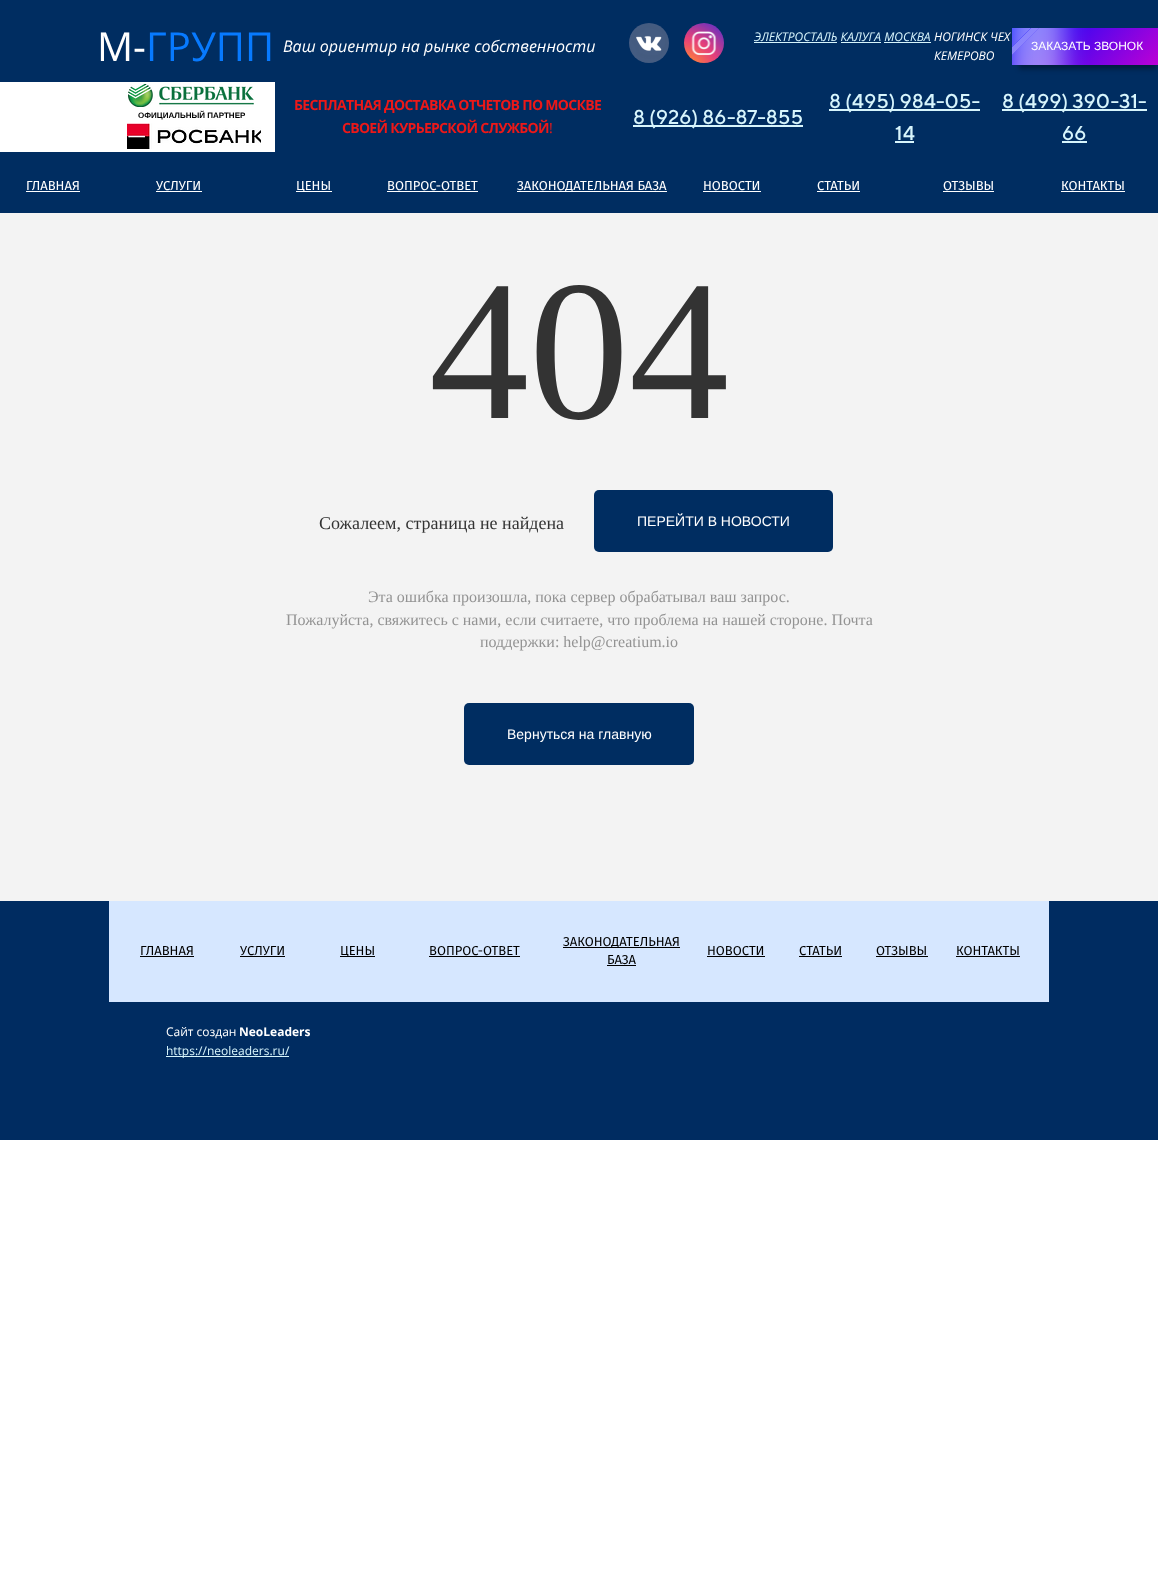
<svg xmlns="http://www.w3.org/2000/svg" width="1158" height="1574">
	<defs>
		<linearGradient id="g1" gradientUnits="userSpaceOnUse" x1="1037" y1="0.7" x2="1138" y2="92"><stop offset="0" stop-color="#000AFF" /><stop offset="1" stop-color="#C100D4" /></linearGradient>
		<clipPath id="clip1"><rect x="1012" y="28" width="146" height="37" /></clipPath>
		<clipPath id="clip2"><path d="M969 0H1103V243H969ZM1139-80.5L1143-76L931 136L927 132Z" clip-rule="evenodd" /></clipPath>
		<clipPath id="clip3"><rect x="1012" y="28" width="146" height="37" /></clipPath>
	</defs>
	<rect width="100%" height="100%" fill="#FFFFFF" />
	<rect x="0" y="0" width="1158" height="213" fill="#002D61" />
	<text x="97" y="61" font-family="Open Sans" font-size="40" fill="#FFFFFF">М-</text>
	<text x="146" y="61" font-family="Open Sans" font-size="40" fill="#077AFF">ГРУПП</text>
	<text x="283" y="52" font-family="Open Sans" font-size="16" font-style="italic" fill="#FFFFFF">Ваш ориентир на рынке собственности</text>
	<image x="629" y="23" width="40" height="40" href="assets/img1.png" />
	<image x="684" y="23" width="40" height="40" href="assets/img2.png" />
	<text x="754" y="41" font-family="Open Sans" font-size="12" font-style="italic" fill="#D7F5FC">ЭЛЕКТРОСТАЛЬ КАЛУГА МОСКВА</text>
	<rect x="754" y="42" width="83" height="1" fill="#D7F5FC" />
	<rect x="841" y="42" width="40" height="1" fill="#D7F5FC" />
	<rect x="884" y="42" width="47" height="1" fill="#D7F5FC" />
	<g font-family="Open Sans" font-size="12" font-style="italic" fill="#FFFFFF">
		<text x="934" y="41">НОГИНСК ЧЕХ</text>
		<text x="934" y="60">КЕМЕРОВО</text>
	</g>
	<rect x="1019" y="46" width="137" height="23" fill="#000000" fill-opacity="0.35" filter="blur(2.5px)" />
	<rect x="1012" y="28" width="146" height="37" fill="url(#g1)" />
	<rect x="829" y="109" width="151" height="2" fill="#D7F5FC" />
	<rect x="1002" y="109" width="145" height="2" fill="#D7F5FC" />
	<rect x="1062" y="141" width="25" height="2" fill="#D7F5FC" />
	<rect x="0" y="213" width="1158" height="688" fill="#F3F3F3" />
	<g clip-path="url(#clip1)">
		<g clip-path="url(#clip2)">
			<rect x="1008" y="-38" width="56" height="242" fill="#FFFFFF" fill-opacity="0.5" filter="blur(12.5px)" />
		</g>
	</g>
	<text x="1031" y="50" font-family="Liberation Sans" font-size="12" fill="#FFFFFF">ЗАКАЗАТЬ ЗВОНОК</text>
	<g clip-path="url(#clip3)">
		<path d="M1139-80L1143-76L931 136L927 132Z" fill="#FFFFFF" fill-opacity="0.5" />
	</g>
	<rect x="0" y="82" width="275" height="70" fill="#FFFFFF" />
	<image x="128" y="84" width="126" height="23" href="assets/img3.png" />
	<text x="138" y="118" font-family="Liberation Sans" font-size="8" font-weight="700" fill="#000000">ОФИЦИАЛЬНЫЙ ПАРТНЕР</text>
	<image x="127" y="123" width="134" height="26" href="assets/img4.png" />
	<g font-family="Open Sans" font-size="14" font-weight="700" letter-spacing="-0.7" fill="#ED1818">
		<text x="294" y="110">БЕСПЛАТНАЯ ДОСТАВКА ОТЧЕТОВ ПО МОСКВЕ</text>
		<text x="342" y="133">СВОЕЙ КУРЬЕРСКОЙ СЛУЖБОЙ</text>
	</g>
	<text x="549" y="133" font-family="Open Sans" font-size="14" letter-spacing="-0.7" fill="#ED1818">!</text>
	<rect x="633" y="125" width="170" height="2" fill="#D7F5FC" />
	<g font-family="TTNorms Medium" font-size="20" fill="#D7F5FC">
		<text x="633" y="124">8 (926) 86-87-855</text>
		<text x="829" y="108">8 (495) 984-05-</text>
		<text x="895" y="140">14</text>
	</g>
	<rect x="895" y="141" width="19" height="2" fill="#D7F5FC" />
	<g font-family="TTNorms Medium" font-size="20" fill="#D7F5FC">
		<text x="1002" y="108">8 (499) 390-31-</text>
		<text x="1062" y="140">66</text>
	</g>
	<text x="26" y="190" font-family="Fira Sans" font-size="13" fill="#FFFFFF">ГЛАВНАЯ</text>
	<rect x="26" y="191" width="54" height="1" fill="#FFFFFF" />
	<text x="156" y="190" font-family="Fira Sans" font-size="13" fill="#FFFFFF">УСЛУГИ</text>
	<rect x="156" y="191" width="46" height="1" fill="#FFFFFF" />
	<rect x="296" y="191" width="36" height="1" fill="#FFFFFF" />
	<g font-family="Fira Sans" font-size="13" fill="#FFFFFF">
		<text x="296" y="190">ЦЕНЫ</text>
		<text x="387" y="190">ВОПРОС-ОТВЕТ</text>
	</g>
	<rect x="387" y="191" width="91" height="1" fill="#FFFFFF" />
	<rect x="517" y="191" width="150" height="1" fill="#FFFFFF" />
	<g font-family="Fira Sans" font-size="13" fill="#FFFFFF">
		<text x="517" y="190">ЗАКОНОДАТЕЛЬНАЯ БАЗА</text>
		<text x="703" y="190">НОВОСТИ</text>
	</g>
	<rect x="703" y="191" width="58" height="1" fill="#FFFFFF" />
	<text x="817" y="190" font-family="Fira Sans" font-size="13" fill="#FFFFFF">СТАТЬИ</text>
	<rect x="817" y="191" width="43" height="1" fill="#FFFFFF" />
	<text x="943" y="190" font-family="Fira Sans" font-size="13" fill="#FFFFFF">ОТЗЫВЫ</text>
	<rect x="943" y="191" width="51" height="1" fill="#FFFFFF" />
	<text x="1061" y="190" font-family="Fira Sans" font-size="13" fill="#FFFFFF">КОНТАКТЫ</text>
	<rect x="1061" y="191" width="64" height="1" fill="#FFFFFF" />
	<text x="429" y="418" font-family="Liberation Serif" font-size="200" fill="#333333">404</text>
	<text x="319" y="529" font-family="Liberation Serif" font-size="18" fill="#333333">Сожалеем, страница не найдена</text>
	<rect x="594" y="490" width="239" height="62" rx="5" fill="#002D61" />
	<text x="637" y="526" font-family="Liberation Sans" font-size="14" fill="#FFFFFF">ПЕРЕЙТИ В НОВОСТИ</text>
	<g font-family="Liberation Serif" font-size="16" fill="#939393">
		<text x="368" y="602">Эта ошибка произошла, пока сервер обрабатывал ваш запрос.</text>
		<text x="286" y="625">Пожалуйста, свяжитесь с нами, если считаете, что проблема на нашей стороне. Почта</text>
		<text x="480" y="647">поддержки: help@creatium.io</text>
	</g>
	<rect x="464" y="703" width="230" height="62" rx="5" fill="#002D61" />
	<text x="507" y="739" font-family="Liberation Sans" font-size="14" fill="#FFFFFF">Вернуться на главную</text>
	<rect x="0" y="901" width="1158" height="239" fill="#002C61" />
	<rect x="109" y="901" width="940" height="101" fill="#D6E7FF" />
	<text x="140" y="955" font-family="Fira Sans" font-size="13" fill="#000000">ГЛАВНАЯ</text>
	<rect x="140" y="956" width="54" height="1" fill="#000000" />
	<text x="240" y="955" font-family="Fira Sans" font-size="13" fill="#000000">УСЛУГИ</text>
	<rect x="240" y="956" width="45" height="1" fill="#000000" />
	<rect x="340" y="956" width="35" height="1" fill="#000000" />
	<g font-family="Fira Sans" font-size="13" fill="#000000">
		<text x="340" y="955">ЦЕНЫ</text>
		<text x="429" y="955">ВОПРОС-ОТВЕТ</text>
	</g>
	<rect x="429" y="956" width="91" height="1" fill="#000000" />
	<rect x="563" y="947" width="117" height="1" fill="#000000" />
	<g font-family="Fira Sans" font-size="13" fill="#000000">
		<text x="563" y="946">ЗАКОНОДАТЕЛЬНАЯ</text>
		<text x="607" y="964">БАЗА</text>
	</g>
	<rect x="607" y="965" width="29" height="1" fill="#000000" />
	<text x="707" y="955" font-family="Fira Sans" font-size="13" fill="#000000">НОВОСТИ</text>
	<rect x="707" y="956" width="58" height="1" fill="#000000" />
	<text x="799" y="955" font-family="Fira Sans" font-size="13" fill="#000000">СТАТЬИ</text>
	<rect x="799" y="956" width="43" height="1" fill="#000000" />
	<text x="876" y="955" font-family="Fira Sans" font-size="13" fill="#000000">ОТЗЫВЫ</text>
	<rect x="876" y="956" width="52" height="1" fill="#000000" />
	<text x="956" y="955" font-family="Fira Sans" font-size="13" fill="#000000">КОНТАКТЫ</text>
	<rect x="956" y="956" width="64" height="1" fill="#000000" />
	<text x="166" y="1036" font-family="Open Sans" font-size="12" fill="#FFFFFF">Сайт создан</text>
	<text x="239" y="1036" font-family="Open Sans" font-size="12" font-weight="700" fill="#FFFFFF">NeoLeaders</text>
	<rect x="166" y="1056" width="123" height="1" fill="#D7F5FC" />
	<text x="166" y="1055" font-family="Open Sans" font-size="12" fill="#D7F5FC">https://neoleaders.ru/</text>
</svg>
